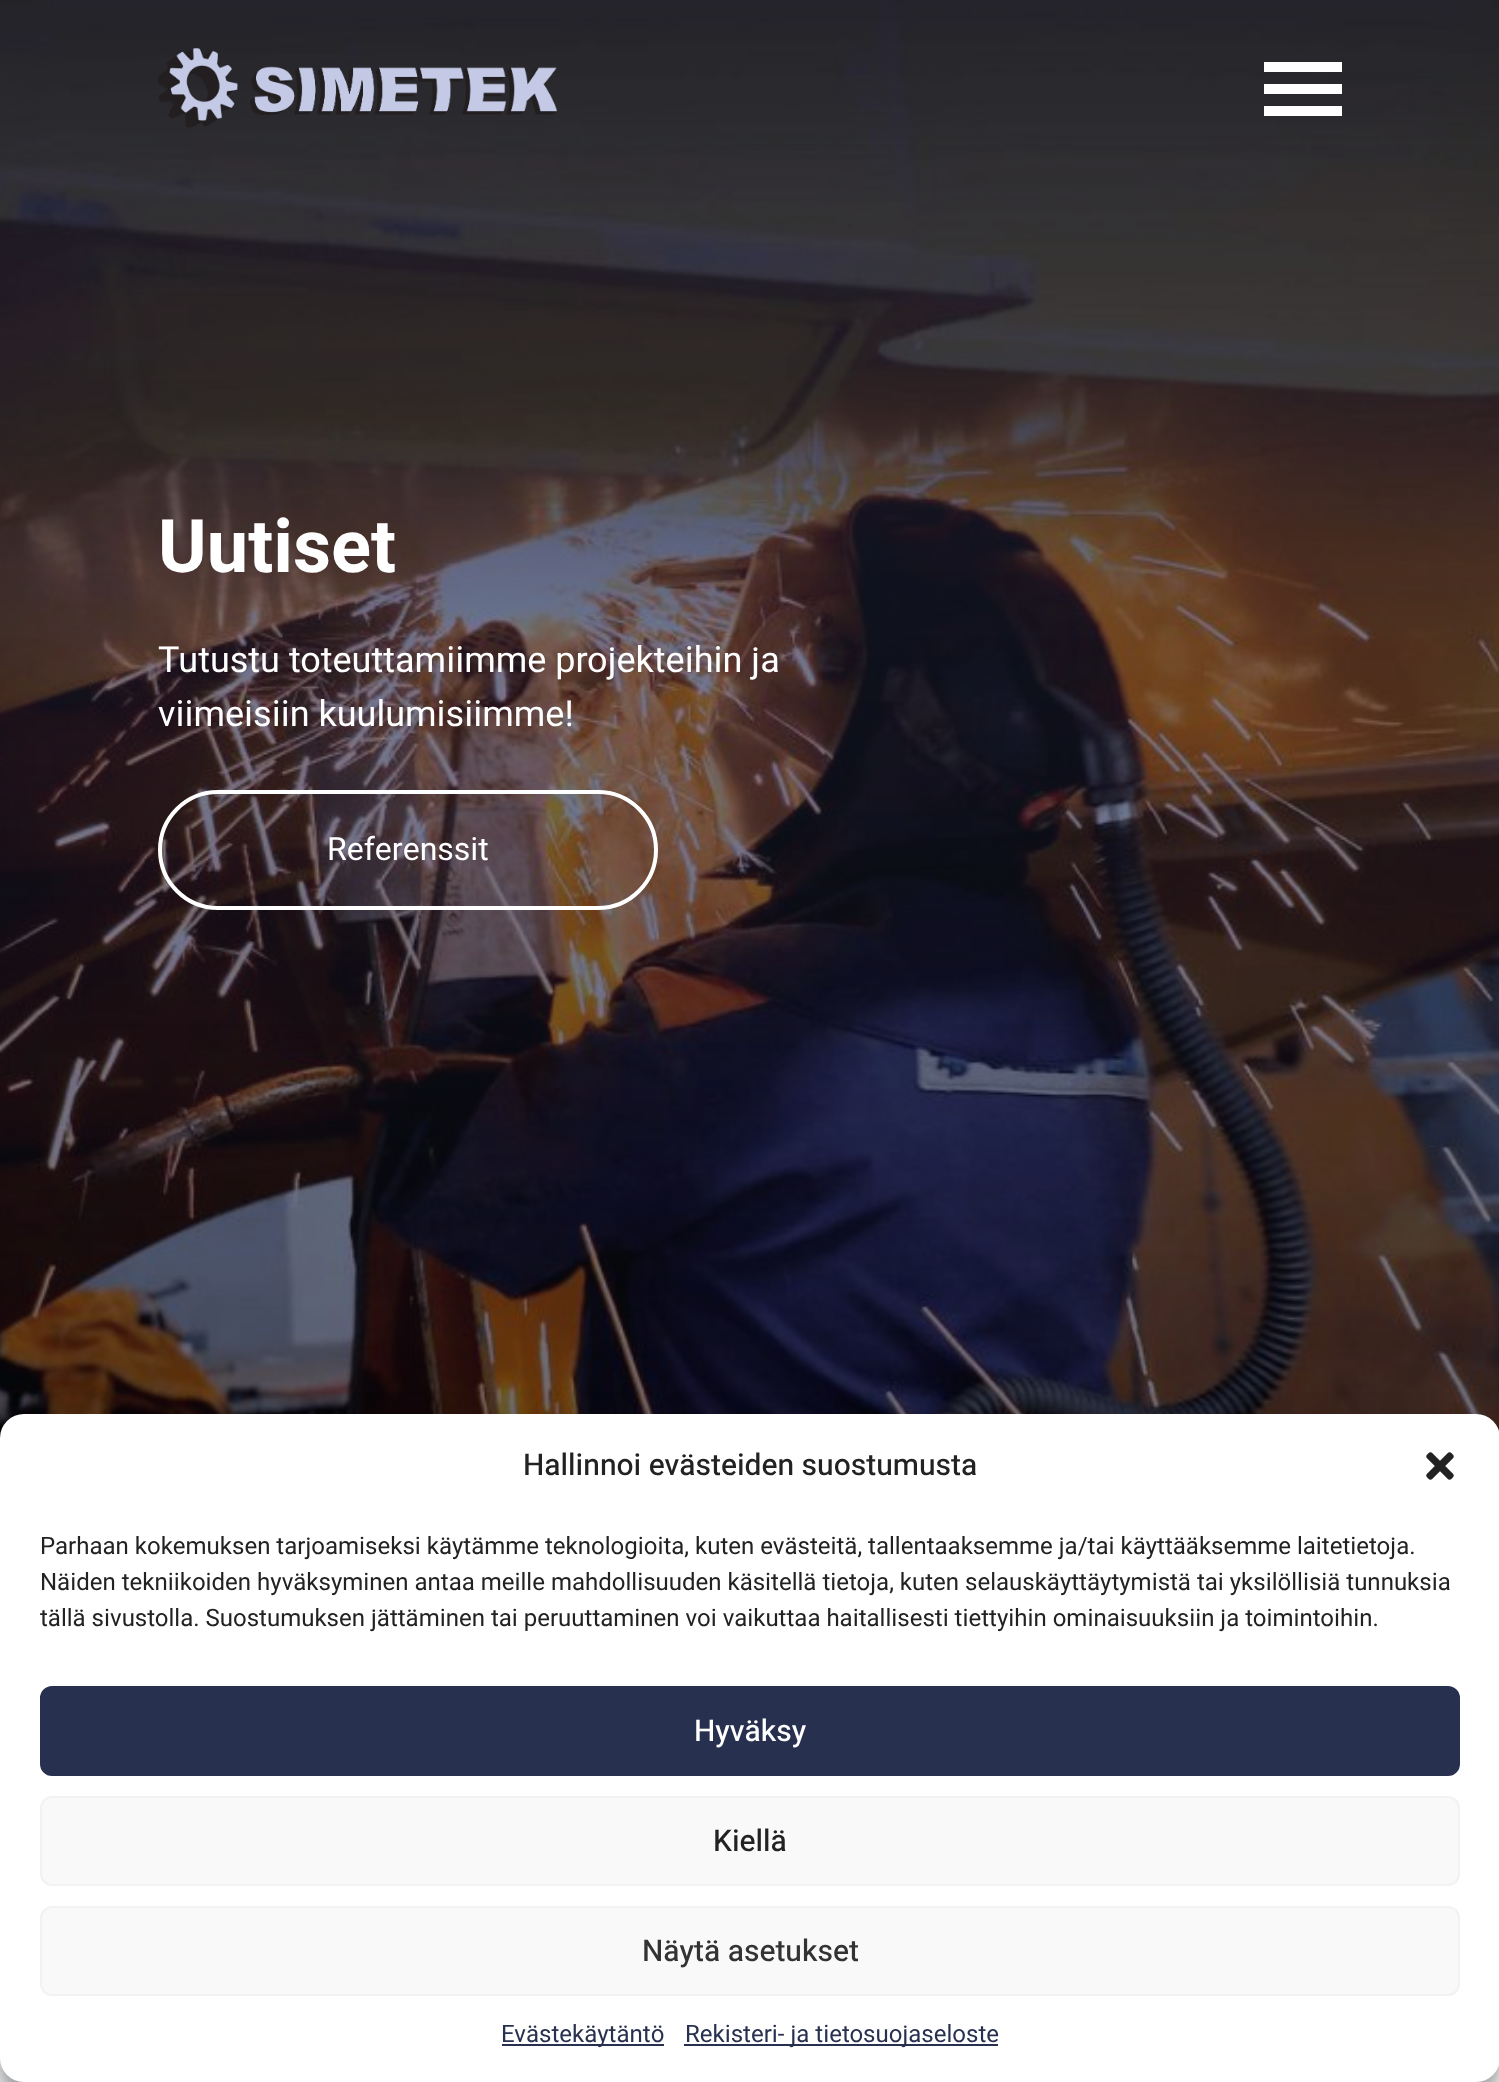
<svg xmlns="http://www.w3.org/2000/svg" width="1499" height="2082">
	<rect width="100%" height="100%" fill="#FFFFFF" />
	<image x="0" y="0" width="1499" height="1438" href="assets/img2.png" />
	<image x="158" y="48" width="400" height="80" href="assets/img1.png" />
	<rect x="1264" y="62" width="78" height="10" fill="#FFFFFF" />
	<rect x="1264" y="84" width="78" height="10" fill="#FFFFFF" />
	<rect x="1264" y="106" width="78" height="10" fill="#FFFFFF" />
	<text x="158" y="572" font-family="Heebo" font-size="74" font-weight="700" fill="#FFFFFF">Uutiset</text>
	<g font-family="Heebo" font-size="36" fill="#FFFFFF">
		<text x="158" y="672">Tutustu toteuttamiimme projekteihin ja</text>
		<text x="158" y="726">viimeisiin kuulumisiimme!</text>
	</g>
	<rect x="160" y="792" width="496" height="116" rx="58" fill="none" stroke="#FFFFFF" stroke-width="4" />
	<text x="327" y="860" font-family="Heebo" font-size="32" fill="#FFFFFF">Referenssit</text>
	<rect x="0" y="2058" width="24" height="24" fill="#F6F7FA" />
	<rect x="0" y="1426" width="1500" height="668" rx="24" fill="#000000" fill-opacity="0.23" filter="blur(6px)" />
	<rect x="0" y="1434" width="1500" height="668" rx="24" fill="#000000" fill-opacity="0.19" filter="blur(20px)" />
	<rect x="0" y="1414" width="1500" height="668" rx="24" fill="#FFFFFF" />
	<text x="523" y="1475" font-family="Heebo" font-size="30" font-weight="500" fill="#222222">Hallinnoi evästeiden suostumusta</text>
	<image x="1426" y="1452" width="28" height="28" href="assets/img3.png" />
	<g font-family="Heebo" font-size="24" fill="#222222">
		<text x="40" y="1554">Parhaan kokemuksen tarjoamiseksi käytämme teknologioita, kuten evästeitä, tallentaaksemme ja/tai käyttääksemme laitetietoja.</text>
		<text x="40" y="1590">Näiden tekniikoiden hyväksyminen antaa meille mahdollisuuden käsitellä tietoja, kuten selauskäyttäytymistä tai yksilöllisiä tunnuksia</text>
		<text x="40" y="1626">tällä sivustolla. Suostumuksen jättäminen tai peruuttaminen voi vaikuttaa haitallisesti tiettyihin ominaisuuksiin ja toimintoihin.</text>
	</g>
	<rect x="41" y="1687" width="1418" height="88" rx="11" fill="#283050" stroke="#283050" stroke-width="2" />
	<text x="694" y="1741" font-family="Heebo" font-size="30" font-weight="500" fill="#FFFFFF">Hyväksy</text>
	<rect x="41" y="1797" width="1418" height="88" rx="11" fill="#F9F9F9" stroke="#F2F2F2" stroke-width="2" />
	<text x="713" y="1851" font-family="Heebo" font-size="30" font-weight="500" fill="#222222">Kiellä</text>
	<rect x="41" y="1907" width="1418" height="88" rx="11" fill="#F9F9F9" stroke="#F2F2F2" stroke-width="2" />
	<text x="642" y="1961" font-family="Heebo" font-size="30" font-weight="500" fill="#333333">Näytä asetukset</text>
	<rect x="502" y="2044" width="162" height="2" fill="#283050" />
	<text x="501" y="2042" font-family="Heebo" font-size="24" fill="#283050">Evästekäytäntö</text>
	<rect x="684" y="2044" width="314" height="2" fill="#283050" />
	<text x="685" y="2042" font-family="Heebo" font-size="24" fill="#283050">Rekisteri- ja tietosuojaseloste</text>
</svg>
